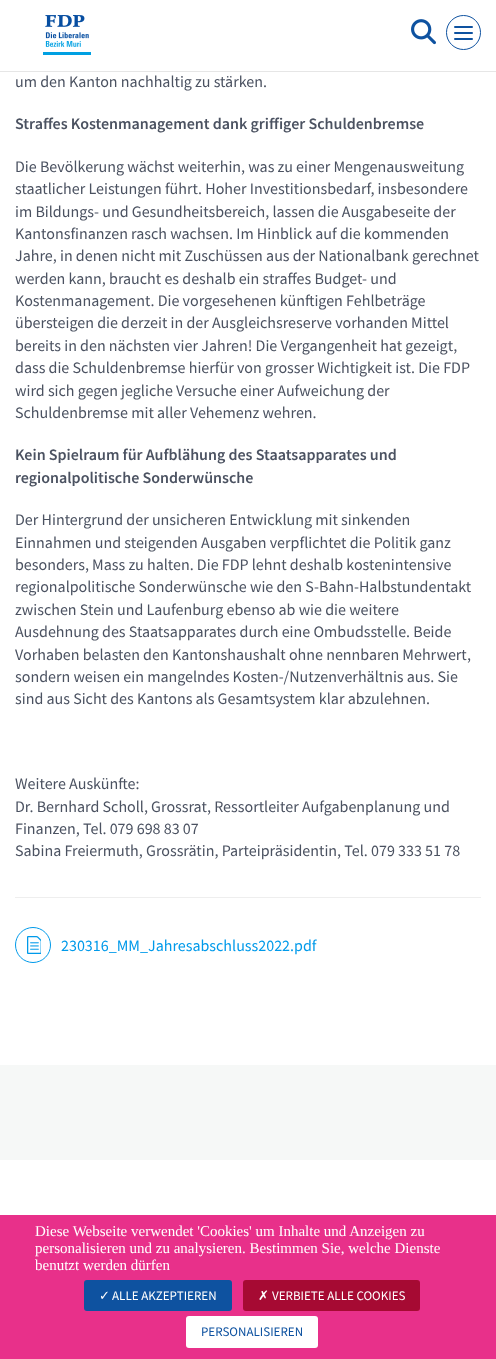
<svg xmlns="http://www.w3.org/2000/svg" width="496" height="1359">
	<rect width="100%" height="100%" fill="#FFFFFF" />
	<rect x="0" y="71" width="496" height="1" fill="#E6E6E6" />
	<image x="43" y="15" width="48" height="40" href="assets/img1.png" />
	<image x="411" y="19" width="25" height="26" href="assets/img2.png" />
	<circle cx="463.5" cy="32.5" r="17" fill="none" stroke="#0E52A0" />
	<rect x="454" y="26" width="19" height="2" rx="1" fill="#0E52A0" />
	<rect x="454" y="32" width="19" height="2" rx="1" fill="#0E52A0" />
	<rect x="454" y="38" width="19" height="2" rx="1" fill="#0E52A0" />
	<text x="15" y="87" font-family="Source Sans Pro" font-size="16" fill="#4B5261">um den Kanton nachhaltig zu stärken.</text>
	<text x="15" y="129" font-family="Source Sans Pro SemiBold" font-size="16" font-weight="600" fill="#4B5261">Straffes Kostenmanagement dank griffiger Schuldenbremse</text>
	<g font-family="Source Sans Pro" font-size="16" fill="#4B5261">
		<text x="15" y="172">Die Bevölkerung wächst weiterhin, was zu einer Mengenausweitung</text>
		<text x="15" y="194">staatlicher Leistungen führt. Hoher Investitionsbedarf, insbesondere</text>
		<text x="15" y="217">im Bildungs- und Gesundheitsbereich, lassen die Ausgabeseite der</text>
		<text x="15" y="239">Kantonsfinanzen rasch wachsen. Im Hinblick auf die kommenden</text>
		<text x="15" y="261">Jahre, in denen nicht mit Zuschüssen aus der Nationalbank gerechnet</text>
		<text x="15" y="284">werden kann, braucht es deshalb ein straffes Budget- und</text>
		<text x="15" y="306">Kostenmanagement. Die vorgesehenen künftigen Fehlbeträge</text>
		<text x="15" y="328">übersteigen die derzeit in der Ausgleichsreserve vorhanden Mittel</text>
		<text x="15" y="351">bereits in den nächsten vier Jahren! Die Vergangenheit hat gezeigt,</text>
		<text x="15" y="373">dass die Schuldenbremse hierfür von grosser Wichtigkeit ist. Die FDP</text>
		<text x="15" y="396">wird sich gegen jegliche Versuche einer Aufweichung der</text>
		<text x="15" y="418">Schuldenbremse mit aller Vehemenz wehren.</text>
	</g>
	<g font-family="Source Sans Pro SemiBold" font-size="16" font-weight="600" fill="#4B5261">
		<text x="15" y="460">Kein Spielraum für Aufblähung des Staatsapparates und</text>
		<text x="15" y="483">regionalpolitische Sonderwünsche</text>
	</g>
	<g font-family="Source Sans Pro" font-size="16" fill="#4B5261">
		<text x="15" y="525">Der Hintergrund der unsicheren Entwicklung mit sinkenden</text>
		<text x="15" y="548">Einnahmen und steigenden Ausgaben verpflichtet die Politik ganz</text>
		<text x="15" y="570">besonders, Mass zu halten. Die FDP lehnt deshalb kostenintensive</text>
		<text x="15" y="592">regionalpolitische Sonderwünsche wie den S-Bahn-Halbstundentakt</text>
		<text x="15" y="615">zwischen Stein und Laufenburg ebenso ab wie die weitere</text>
		<text x="15" y="637">Ausdehnung des Staatsapparates durch eine Ombudsstelle. Beide</text>
		<text x="15" y="660">Vorhaben belasten den Kantonshaushalt ohne nennbaren Mehrwert,</text>
		<text x="15" y="682">sondern weisen ein mangelndes Kosten-/Nutzenverhältnis aus. Sie</text>
		<text x="15" y="704">sind aus Sicht des Kantons als Gesamtsystem klar abzulehnen.</text>
		<text x="15" y="789">Weitere Auskünfte:</text>
		<text x="15" y="812">Dr. Bernhard Scholl, Grossrat, Ressortleiter Aufgabenplanung und</text>
		<text x="15" y="834">Finanzen, Tel. 079 698 83 07</text>
		<text x="15" y="856">Sabina Freiermuth, Grossrätin, Parteipräsidentin, Tel. 079 333 51 78</text>
	</g>
	<rect x="15" y="897" width="466" height="1" fill="#EEEEEE" />
	<circle cx="33" cy="945" r="17.5" fill="none" stroke="#009AEA" />
	<image x="27" y="936" width="14" height="18" href="assets/img3.png" />
	<text x="61" y="951" font-family="Source Sans Pro" font-size="16" fill="#009AEA">230316_MM_Jahresabschluss2022.pdf</text>
	<rect x="0" y="1065" width="496" height="95" fill="#F6F8F7" />
	<rect x="0" y="1215" width="496" height="144" fill="#E8308A" />
	<g font-family="Liberation Serif" font-size="15" fill="#FFFFFF">
		<text x="35" y="1236">Diese Webseite verwendet 'Cookies' um Inhalte und Anzeigen zu</text>
		<text x="35" y="1253">personalisieren und zu analysieren. Bestimmen Sie, welche Dienste</text>
		<text x="35" y="1270">benutzt werden dürfen</text>
	</g>
	<rect x="84" y="1280" width="148" height="31" rx="3" fill="#0E52A0" />
	<text x="99" y="1300" font-family="DejaVu Sans" font-size="13" fill="#FFFFFF">✓</text>
	<text x="112" y="1300" font-family="Source Sans Pro" font-size="13" fill="#FFFFFF">ALLE AKZEPTIEREN</text>
	<rect x="243" y="1280" width="177" height="31" rx="3" fill="#A60A33" />
	<text x="258" y="1300" font-family="DejaVu Sans" font-size="13" fill="#FFFFFF">✗</text>
	<text x="272" y="1300" font-family="Source Sans Pro" font-size="13" fill="#FFFFFF">VERBIETE ALLE COOKIES</text>
	<rect x="186" y="1316" width="132" height="32" rx="3" fill="#FFFFFF" />
	<text x="201" y="1336" font-family="Source Sans Pro" font-size="13" fill="#0E52A0">PERSONALISIEREN</text>
</svg>
